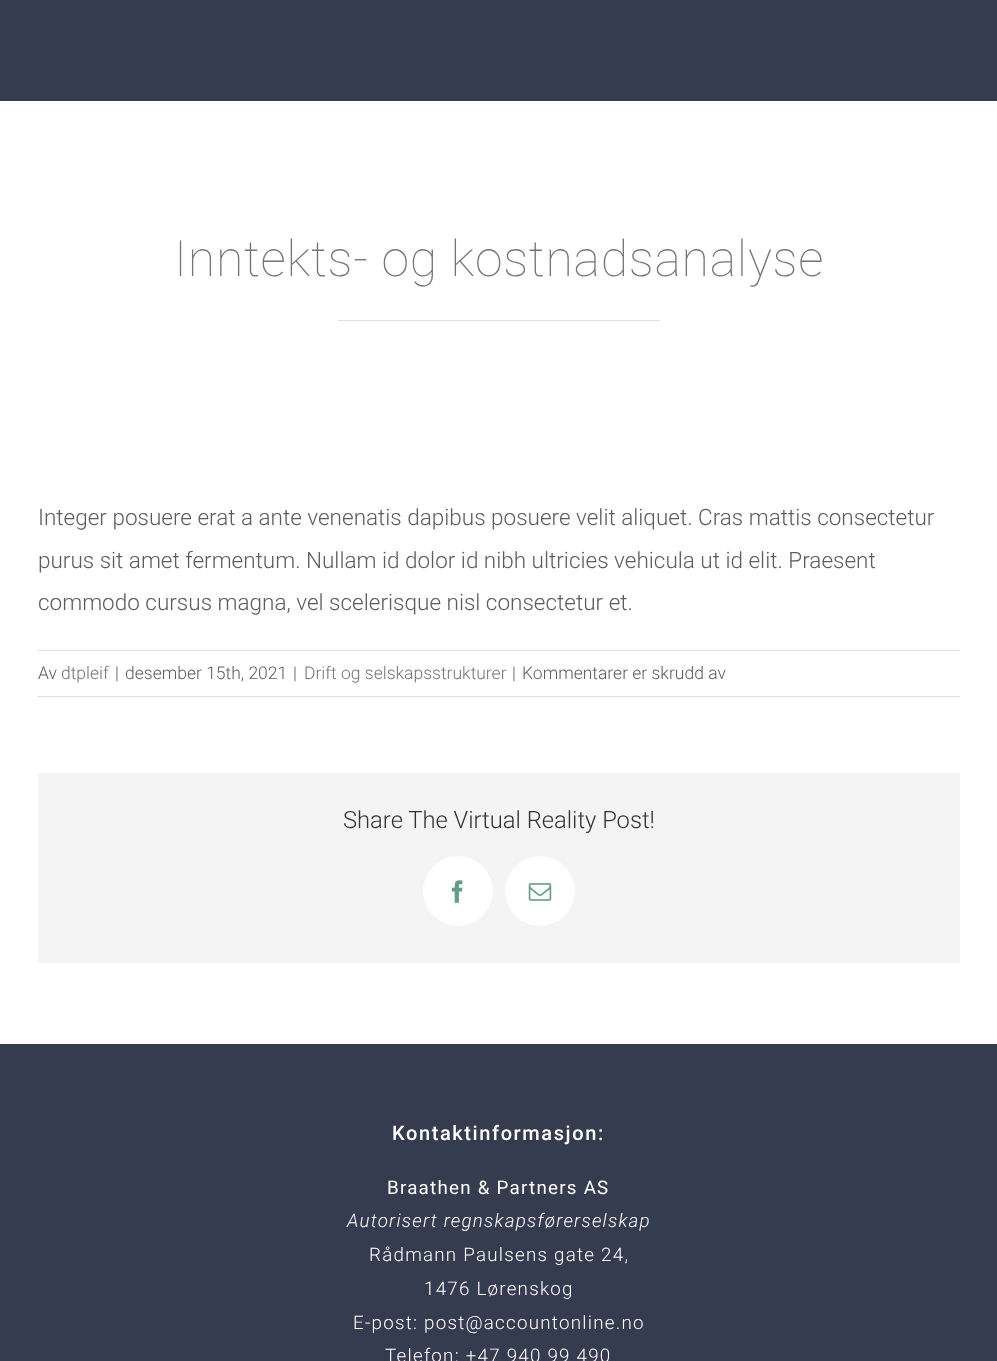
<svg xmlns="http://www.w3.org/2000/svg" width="997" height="1361">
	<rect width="100%" height="100%" fill="#FFFFFF" />
	<rect x="0" y="0" width="997" height="101" fill="#363C4F" />
	<text x="174" y="276" font-family="Roboto" font-size="50" font-weight="100" letter-spacing="0.75" fill="#757575">Inntekts- og kostnadsanalyse</text>
	<rect x="338" y="320" width="322" height="1" fill="#E0E0E0" />
	<g font-family="Roboto" font-size="22.5" font-weight="300" fill="#5C5C5C">
		<text x="38" y="525">Integer posuere erat a ante venenatis dapibus posuere velit aliquet. Cras mattis consectetur</text>
		<text x="38" y="568">purus sit amet fermentum. Nullam id dolor id nibh ultricies vehicula ut id elit. Praesent</text>
		<text x="38" y="610">commodo cursus magna, vel scelerisque nisl consectetur et.</text>
	</g>
	<rect x="38" y="650" width="922" height="1" fill="#E0E0E0" />
	<rect x="38" y="696" width="922" height="1" fill="#E0E0E0" />
	<text x="38" y="679" font-family="Roboto" font-size="17.5" font-weight="300" fill="#5C5C5C">Av</text>
	<text x="61" y="679" font-family="Roboto" font-size="17.5" font-weight="300" fill="#757575">dtpleif</text>
	<g font-family="Roboto" font-size="17.5" font-weight="300" fill="#5C5C5C">
		<text x="115" y="679">|</text>
		<text x="125" y="679">desember 15th, 2021</text>
		<text x="293" y="679">|</text>
	</g>
	<text x="304" y="679" font-family="Roboto" font-size="17.5" font-weight="300" fill="#757575">Drift og selskapsstrukturer</text>
	<g font-family="Roboto" font-size="17.5" font-weight="300" fill="#5C5C5C">
		<text x="512" y="679">|</text>
		<text x="522" y="679">Kommentarer er skrudd av</text>
	</g>
	<rect x="38" y="773" width="922" height="190" fill="#F4F4F4" />
	<text x="343" y="828" font-family="Roboto" font-size="23.75" font-weight="300" fill="#333333">Share The Virtual Reality Post!</text>
	<circle cx="458" cy="891" r="34.5" fill="#FFFFFF" stroke="#FFFFFF" />
	<image x="451" y="880" width="12" height="23" href="assets/img1.png" />
	<circle cx="540" cy="891" r="34.5" fill="#FFFFFF" stroke="#FFFFFF" />
	<image x="528" y="883" width="24" height="18" href="assets/img2.png" />
	<rect x="0" y="1044" width="997" height="317" fill="#363C4F" />
	<text x="392" y="1140" font-family="Roboto" font-size="20" font-weight="500" letter-spacing="1.6" fill="#FFFFFF">Kontaktinformasjon:</text>
	<text x="387" y="1194" font-family="Roboto" font-size="18.75" letter-spacing="1.25" fill="#FFFFFF">Braathen &amp; Partners AS</text>
	<text x="347" y="1227" font-family="Roboto" font-size="18.75" font-weight="300" font-style="italic" letter-spacing="1.25" fill="#FFFFFF">Autorisert regnskapsførerselskap</text>
	<g font-family="Roboto" font-size="18.75" font-weight="300" letter-spacing="1.25" fill="#FFFFFF">
		<text x="369" y="1261">Rådmann Paulsens gate 24,</text>
		<text x="424" y="1295">1476 Lørenskog</text>
		<text x="353" y="1329">E-post: post@accountonline.no</text>
		<text x="385" y="1362">Telefon: +47 940 99 490</text>
	</g>
</svg>
